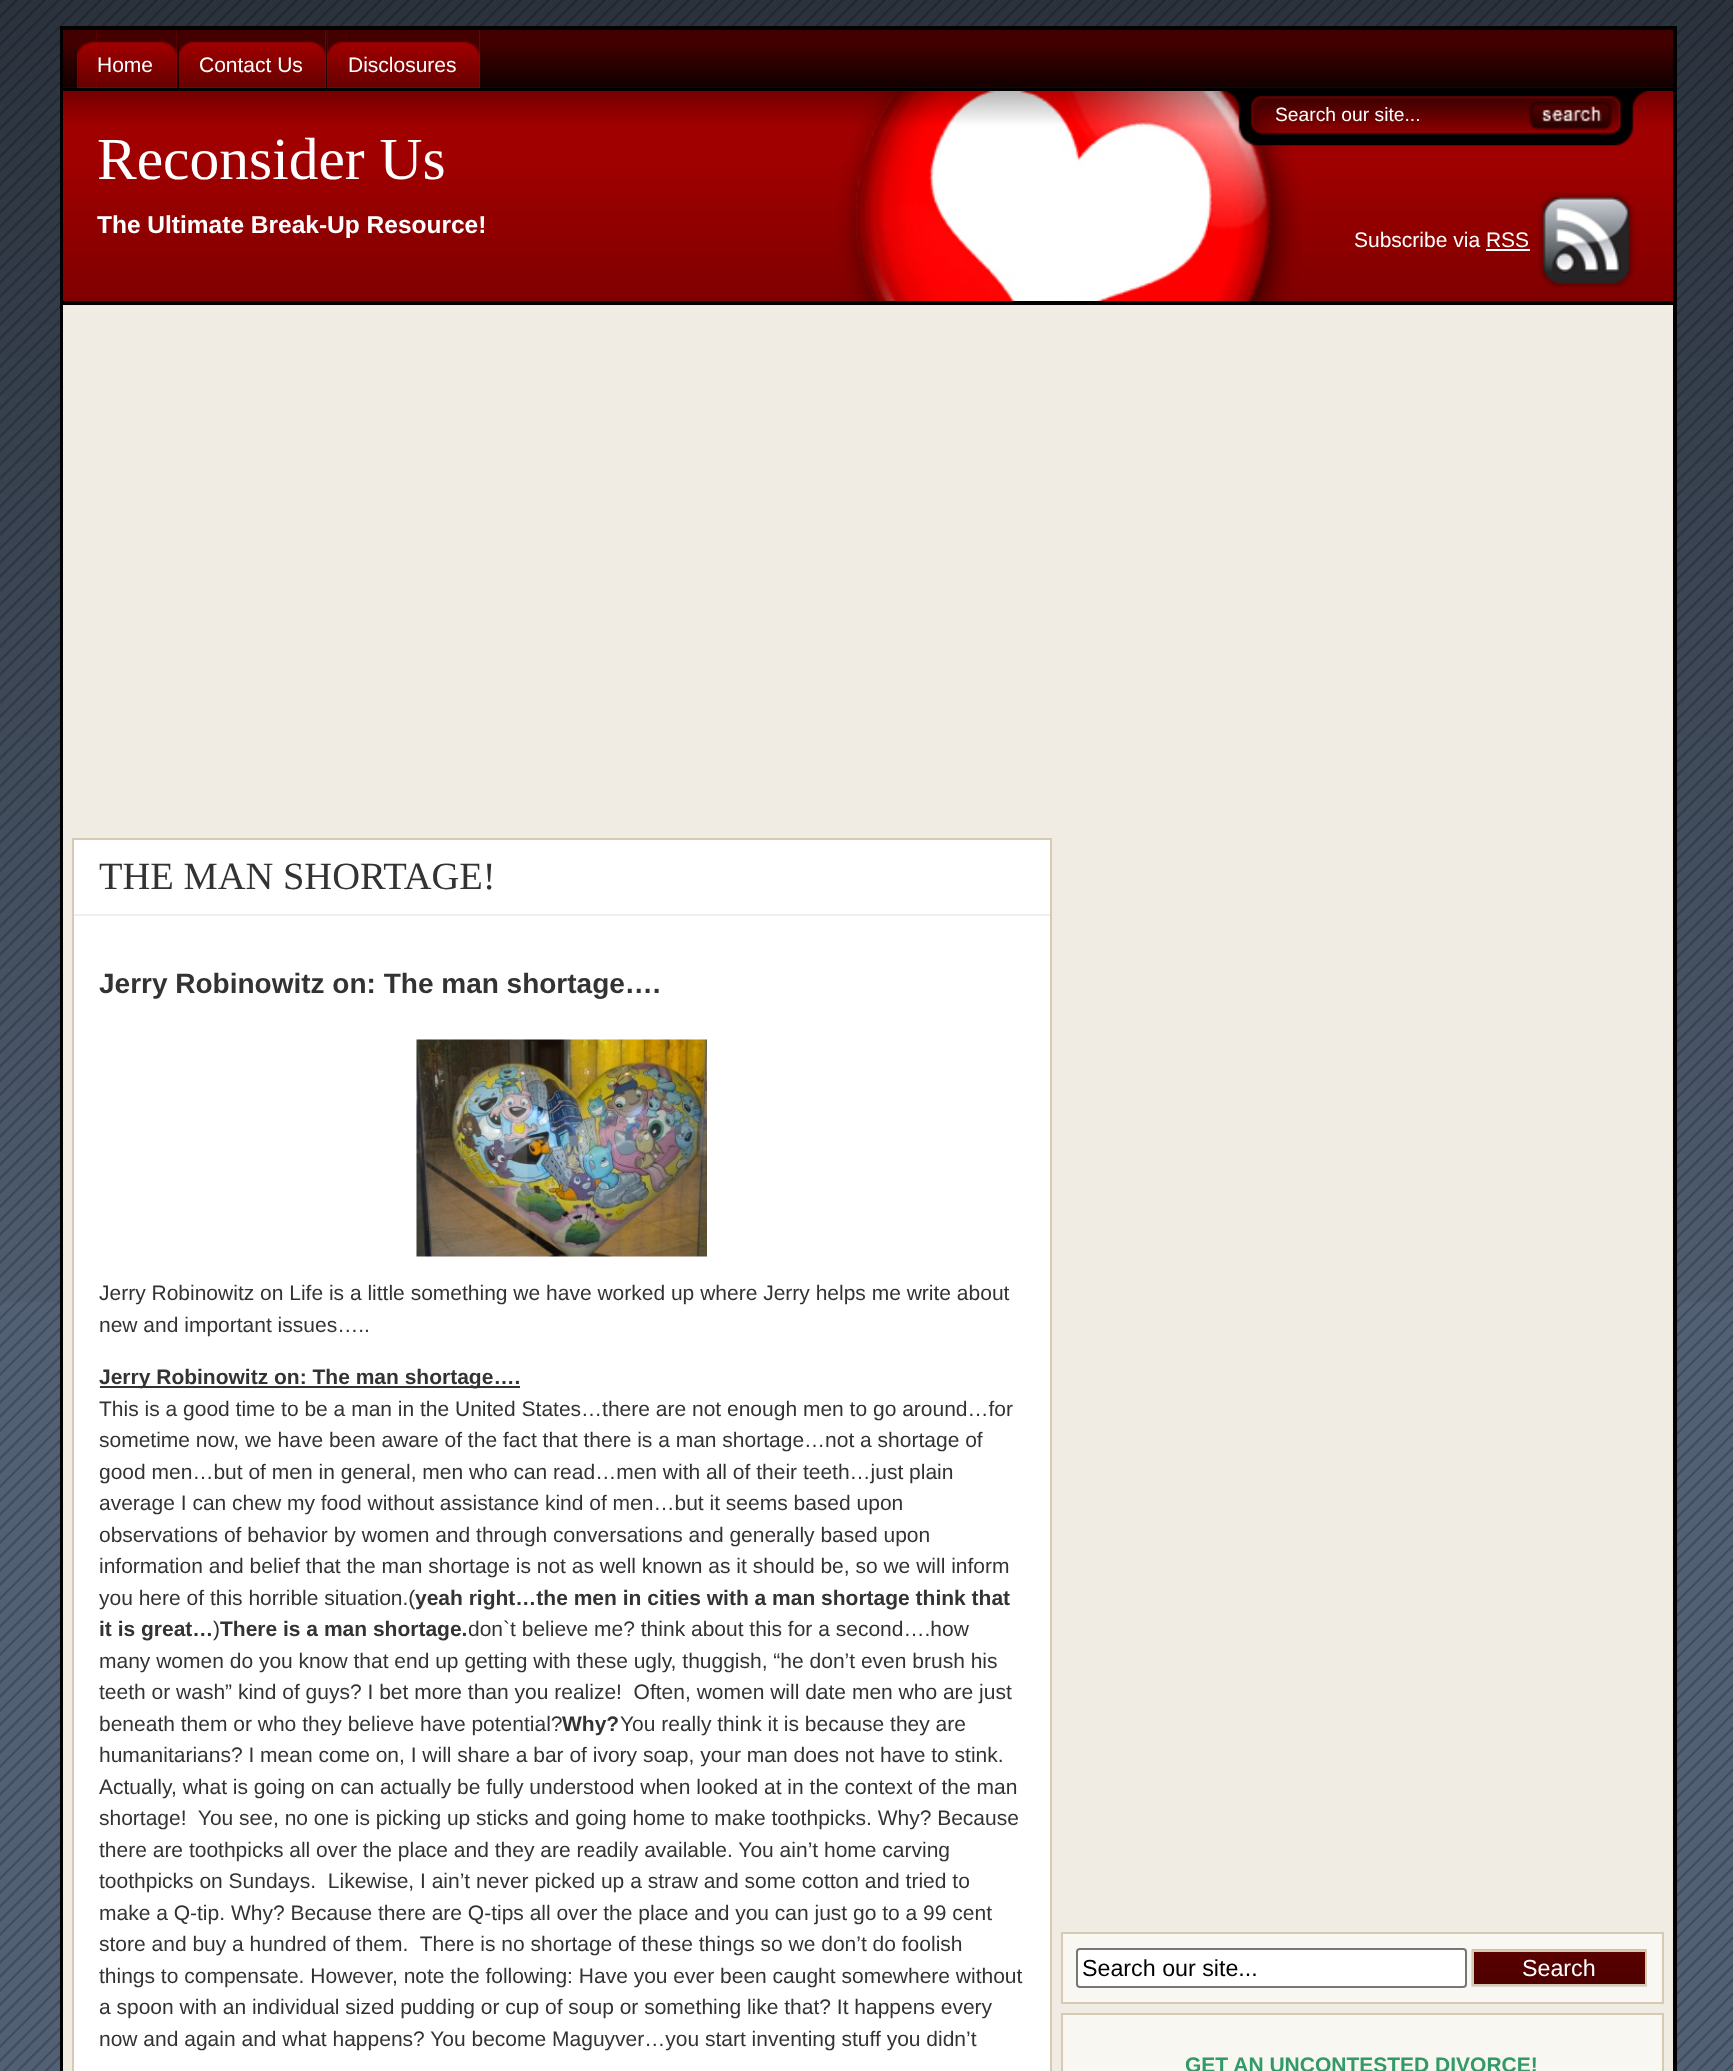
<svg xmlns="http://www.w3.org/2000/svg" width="1733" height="2071">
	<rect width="100%" height="100%" fill="#526074" />
	<image x="0" y="0" width="1733" height="2071" href="assets/img1.png" />
	<image x="0" y="0" width="1733" height="1302" href="assets/img2.png" />
	<rect x="62" y="28" width="1613" height="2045" fill="none" stroke="#000000" stroke-width="4" />
	<rect x="63" y="30" width="1610" height="58" fill="#A10000" />
	<image x="63" y="30" width="1610" height="58" href="assets/img3.png" />
	<rect x="63" y="88" width="1610" height="3" fill="#000000" />
	<rect x="77" y="30" width="100" height="58" fill="#A10000" />
	<image x="77" y="30" width="19" height="58" href="assets/img4.png" />
	<image x="96" y="30" width="81" height="58" href="assets/img5.png" />
	<text x="97" y="72" font-family="Liberation Sans" font-size="21" fill="#FFFFFF">Home</text>
	<rect x="179" y="30" width="147" height="58" fill="#A10000" />
	<image x="178" y="30" width="20" height="58" href="assets/img6.png" />
	<image x="197" y="30" width="129" height="58" href="assets/img7.png" />
	<text x="199" y="72" font-family="Liberation Sans" font-size="21" fill="#FFFFFF">Contact Us</text>
	<rect x="327" y="30" width="153" height="58" fill="#A10000" />
	<image x="327" y="30" width="20" height="58" href="assets/img8.png" />
	<image x="346" y="30" width="134" height="58" href="assets/img9.png" />
	<text x="348" y="72" font-family="Liberation Sans" font-size="21" fill="#FFFFFF">Disclosures</text>
	<rect x="63" y="91" width="1610" height="210" fill="#A10000" />
	<image x="63" y="91" width="1610" height="210" href="assets/img10.png" />
	<rect x="63" y="301" width="1610" height="4" fill="#000000" />
	<image x="1223" y="91" width="424" height="55" href="assets/img11.png" />
	<text x="1275" y="121" font-family="Liberation Sans" font-size="19.25" fill="#FFFFFF">Search our site...</text>
	<text x="97" y="179" font-family="Liberation Serif" font-size="59.5" fill="#FFFFFF">Reconsider Us</text>
	<text x="97" y="233" font-family="Liberation Sans" font-size="24.5" font-weight="700" fill="#FFFFFF">The Ultimate Break-Up Resource!</text>
	<text x="1354" y="247" font-family="Liberation Sans" font-size="21" fill="#FFFFFF">Subscribe via RSS</text>
	<rect x="1486" y="249" width="44" height="2" fill="#FFFFFF" />
	<image x="1538" y="192" width="97" height="97" href="assets/img12.png" />
	<rect x="63" y="305" width="1610" height="1766" fill="#F0EBE3" />
	<rect x="73" y="839" width="978" height="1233" fill="#FFFFFF" stroke="#D7CAB5" stroke-width="2" />
	<rect x="74" y="914" width="976" height="2" fill="#EEEEEE" />
	<text x="99" y="889" font-family="Liberation Serif" font-size="38.5" fill="#333333">THE MAN SHORTAGE!</text>
	<text x="99" y="993" font-family="Liberation Sans" font-size="28" font-weight="700" fill="#333333">Jerry Robinowitz on: The man shortage….</text>
	<image x="416" y="1039" width="291" height="218" href="assets/img13.png" />
	<g font-family="Liberation Sans" font-size="21" fill="#333333">
		<text x="99" y="1300">Jerry Robinowitz on Life is a little something we have worked up where Jerry helps me write about</text>
		<text x="99" y="1332">new and important issues…..</text>
	</g>
	<rect x="100" y="1386" width="420" height="2" fill="#333333" />
	<text x="99" y="1384" font-family="Liberation Sans" font-size="21" font-weight="700" fill="#333333">Jerry Robinowitz on: The man shortage….</text>
	<g font-family="Liberation Sans" font-size="21" fill="#333333">
		<text x="99" y="1416">This is a good time to be a man in the United States…there are not enough men to go around…for</text>
		<text x="99" y="1447">sometime now, we have been aware of the fact that there is a man shortage…not a shortage of</text>
		<text x="99" y="1479">good men…but of men in general, men who can read…men with all of their teeth…just plain</text>
		<text x="99" y="1510">average I can chew my food without assistance kind of men…but it seems based upon</text>
		<text x="99" y="1542">observations of behavior by women and through conversations and generally based upon</text>
		<text x="99" y="1573">information and belief that the man shortage is not as well known as it should be, so we will inform</text>
		<text x="99" y="1605">you here of this horrible situation.(</text>
	</g>
	<g font-family="Liberation Sans" font-size="21" font-weight="700" fill="#333333">
		<text x="415" y="1605">yeah right…the men in cities with a man shortage think that</text>
		<text x="99" y="1636">it is great…</text>
	</g>
	<text x="213" y="1636" font-family="Liberation Sans" font-size="21" fill="#333333">)</text>
	<text x="220" y="1636" font-family="Liberation Sans" font-size="21" font-weight="700" fill="#333333">There is a man shortage.</text>
	<g font-family="Liberation Sans" font-size="21" fill="#333333">
		<text x="468" y="1636">don`t believe me? think about this for a second….how</text>
		<text x="99" y="1668">many women do you know that end up getting with these ugly, thuggish, “he don’t even brush his</text>
		<text x="99" y="1699" xml:space="preserve">teeth or wash” kind of guys? I bet more than you realize!  Often, women will date men who are just</text>
		<text x="99" y="1731">beneath them or who they believe have potential?</text>
	</g>
	<text x="562" y="1731" font-family="Liberation Sans" font-size="21" font-weight="700" fill="#333333">Why?</text>
	<g font-family="Liberation Sans" font-size="21" fill="#333333">
		<text x="620" y="1731">You really think it is because they are</text>
		<text x="99" y="1762">humanitarians? I mean come on, I will share a bar of ivory soap, your man does not have to stink.</text>
		<text x="99" y="1794">Actually, what is going on can actually be fully understood when looked at in the context of the man</text>
		<text x="99" y="1825" xml:space="preserve">shortage!  You see, no one is picking up sticks and going home to make toothpicks. Why? Because</text>
		<text x="99" y="1857">there are toothpicks all over the place and they are readily available. You ain’t home carving</text>
		<text x="99" y="1888" xml:space="preserve">toothpicks on Sundays.  Likewise, I ain’t never picked up a straw and some cotton and tried to</text>
		<text x="99" y="1920">make a Q-tip. Why? Because there are Q-tips all over the place and you can just go to a 99 cent</text>
		<text x="99" y="1951" xml:space="preserve">store and buy a hundred of them.  There is no shortage of these things so we don’t do foolish</text>
		<text x="99" y="1983">things to compensate. However, note the following: Have you ever been caught somewhere without</text>
		<text x="99" y="2014">a spoon with an individual sized pudding or cup of soup or something like that? It happens every</text>
		<text x="99" y="2046">now and again and what happens? You become Maguyver…you start inventing stuff you didn’t</text>
	</g>
	<rect x="1062" y="1933" width="601" height="70" fill="#F9F7F2" stroke="#D7CAB5" stroke-width="2" />
	<rect x="1077" y="1949" width="389" height="38" rx="3" fill="#FFFFFF" stroke="#767676" stroke-width="2" />
	<text x="1082" y="1976" font-family="Liberation Sans" font-size="23.25" fill="#000000">Search our site...</text>
	<rect x="1474" y="1952" width="171" height="32" fill="#A10000" />
	<image x="1471" y="1949" width="176" height="38" href="assets/img14.png" />
	<rect x="1473" y="1951" width="173" height="34" fill="none" stroke="#D7CAB5" stroke-width="2" />
	<text x="1522" y="1976" font-family="Liberation Sans" font-size="23.25" fill="#FFFFFF">Search</text>
	<rect x="1062" y="2014" width="601" height="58" fill="#F9F7F2" stroke="#D7CAB5" stroke-width="2" />
	<text x="1185" y="2072" font-family="Liberation Sans" font-size="21" font-weight="700" fill="#339966">GET AN UNCONTESTED DIVORCE!</text>
</svg>
